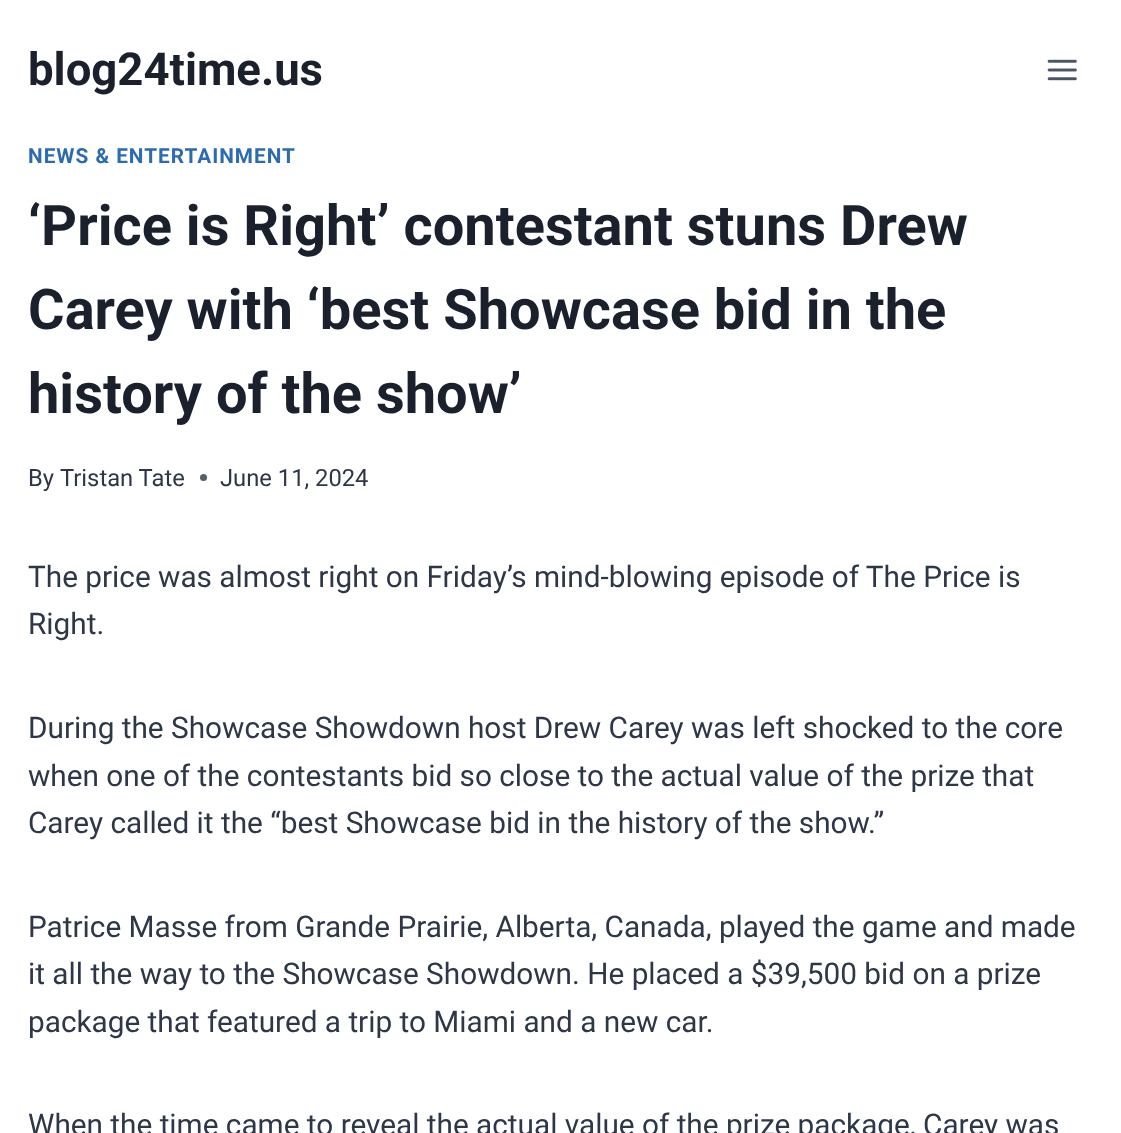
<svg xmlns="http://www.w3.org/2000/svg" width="1121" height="1133">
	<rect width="100%" height="100%" fill="#FFFFFF" />
	<text x="28" y="85" font-family="Roboto" font-size="45.5" font-weight="700" fill="#1A202C">blog24time.us</text>
	<image x="1047" y="59" width="30" height="22" href="assets/img1.png" />
	<text x="28" y="163" font-family="Roboto" font-size="20.75" font-weight="700" letter-spacing="1" fill="#2B6CB0">NEWS &amp; ENTERTAINMENT</text>
	<g font-family="Roboto" font-size="56" font-weight="700" fill="#1A202C">
		<text x="28" y="245">‘Price is Right’ contestant stuns Drew</text>
		<text x="28" y="329">Carey with ‘best Showcase bid in the</text>
		<text x="28" y="413">history of the show’</text>
	</g>
	<g font-family="Roboto" font-size="23.75" fill="#2D3748">
		<text x="28" y="486">By</text>
		<text x="60" y="486">Tristan Tate</text>
	</g>
	<circle cx="203.5" cy="477.5" r="3.5" fill="#575F6D" />
	<text x="220" y="486" font-family="Roboto" font-size="23.75" fill="#2D3748">June 11, 2024</text>
	<g font-family="Roboto" font-size="29.75" fill="#2D3748">
		<text x="28" y="587">The price was almost right on Friday’s mind-blowing episode of The Price is</text>
		<text x="28" y="634">Right.</text>
		<text x="28" y="738">During the Showcase Showdown host Drew Carey was left shocked to the core</text>
		<text x="28" y="786">when one of the contestants bid so close to the actual value of the prize that</text>
		<text x="28" y="833">Carey called it the “best Showcase bid in the history of the show.”</text>
		<text x="28" y="937">Patrice Masse from Grande Prairie, Alberta, Canada, played the game and made</text>
		<text x="28" y="984">it all the way to the Showcase Showdown. He placed a $39,500 bid on a prize</text>
		<text x="28" y="1032">package that featured a trip to Miami and a new car.</text>
		<text x="28" y="1135">When the time came to reveal the actual value of the prize package, Carey was</text>
	</g>
</svg>
